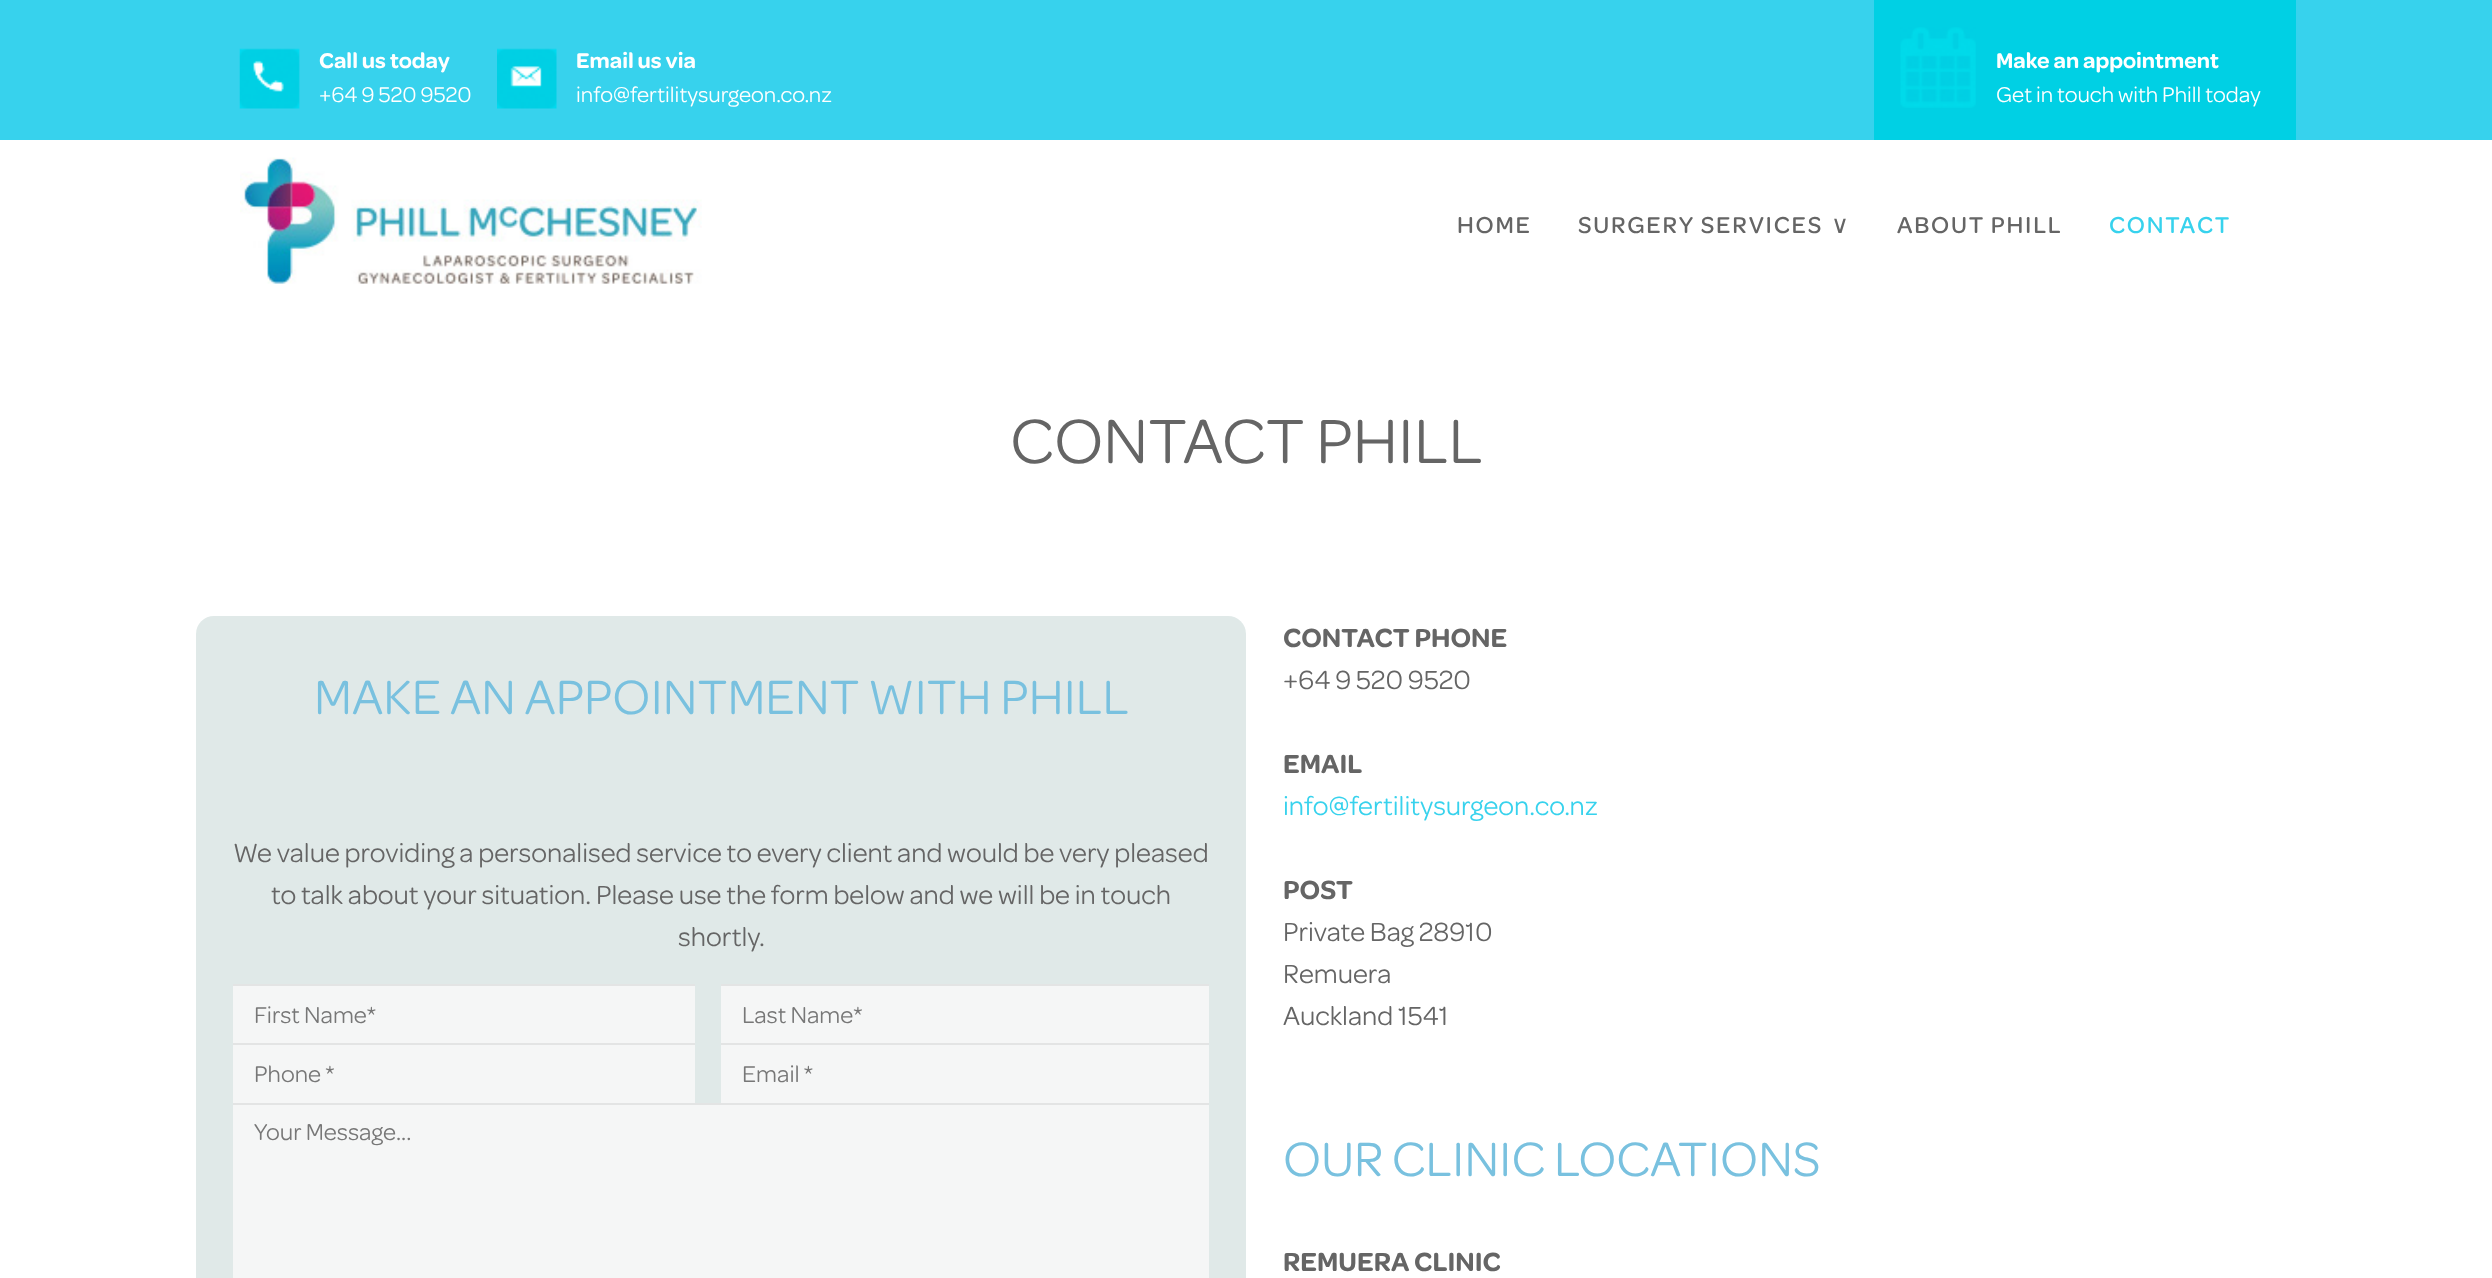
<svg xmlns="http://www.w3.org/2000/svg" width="2492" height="1278">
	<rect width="100%" height="100%" fill="#FFFFFF" />
	<rect x="0" y="0" width="2492" height="140" fill="#37D2ED" />
	<image x="239" y="48" width="61" height="61" href="assets/img1.png" />
	<text x="319" y="68" font-family="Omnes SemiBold" font-size="22.75" font-weight="600" fill="#FFFFFF">Call us today</text>
	<text x="319" y="102" font-family="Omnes" font-size="22.75" fill="#FFFFFF">+64 9 520 9520</text>
	<image x="497" y="48" width="60" height="61" href="assets/img2.png" />
	<text x="576" y="68" font-family="Omnes SemiBold" font-size="22.75" font-weight="600" fill="#FFFFFF">Email us via</text>
	<text x="576" y="102" font-family="Omnes" font-size="22.75" fill="#FFFFFF">info@fertilitysurgeon.co.nz</text>
	<rect x="1874" y="0" width="422" height="140" fill="#00D0E4" />
	<image x="1900" y="27" width="76" height="81" href="assets/img3.png" />
	<text x="1996" y="68" font-family="Omnes SemiBold" font-size="22.75" font-weight="600" fill="#FFFFFF">Make an appointment</text>
	<text x="1996" y="102" font-family="Omnes" font-size="22.75" fill="#FFFFFF">Get in touch with Phill today</text>
	<image x="240" y="157" width="462" height="127" href="assets/img4.png" />
	<g font-family="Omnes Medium" font-size="24.5" font-weight="500" letter-spacing="1.75" fill="#656565">
		<text x="1457" y="233">HOME</text>
		<text x="1578" y="233">SURGERY SERVICES</text>
	</g>
	<text x="1831" y="233" font-family="DejaVu Sans" font-size="24.5" letter-spacing="1.75" fill="#656565">∨</text>
	<text x="1897" y="233" font-family="Omnes Medium" font-size="24.5" font-weight="500" letter-spacing="1.75" fill="#656565">ABOUT PHILL</text>
	<text x="2109" y="233" font-family="Omnes Medium" font-size="24.5" font-weight="500" letter-spacing="1.75" fill="#37D2ED">CONTACT</text>
	<text x="1010" y="463" font-family="Omnes" font-size="66.5" fill="#656565">CONTACT PHILL</text>
	<rect x="196" y="616" width="1050" height="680" rx="18" fill="#E0E9E8" />
	<text x="314" y="714" font-family="Omnes" font-size="51.25" fill="#79C1DF">MAKE AN APPOINTMENT WITH PHILL</text>
	<g font-family="Omnes" font-size="28" fill="#656565">
		<text x="233" y="862">We value providing a personalised service to every client and would be very pleased</text>
		<text x="271" y="904">to talk about your situation. Please use the form below and we will be in touch</text>
		<text x="678" y="946">shortly.</text>
	</g>
	<rect x="233" y="986" width="462" height="57" fill="#F5F6F6" />
	<rect x="233" y="984" width="462" height="2" fill="#E3E4E4" />
	<text x="254" y="1023" font-family="Omnes" font-size="24.5" fill="#777777">First Name*</text>
	<rect x="721" y="986" width="488" height="57" fill="#F5F6F6" />
	<rect x="721" y="984" width="488" height="2" fill="#E3E4E4" />
	<text x="742" y="1023" font-family="Omnes" font-size="24.5" fill="#777777">Last Name*</text>
	<rect x="233" y="1045" width="462" height="58" fill="#F5F6F6" />
	<rect x="233" y="1043" width="462" height="2" fill="#E3E4E4" />
	<text x="254" y="1082" font-family="Omnes" font-size="24.5" fill="#777777">Phone *</text>
	<rect x="721" y="1045" width="488" height="58" fill="#F5F6F6" />
	<rect x="721" y="1043" width="488" height="2" fill="#E3E4E4" />
	<text x="742" y="1082" font-family="Omnes" font-size="24.5" fill="#777777">Email *</text>
	<rect x="233" y="1105" width="976" height="173" fill="#F5F6F6" />
	<rect x="233" y="1103" width="976" height="2" fill="#E3E4E4" />
	<text x="254" y="1140" font-family="Omnes" font-size="24.5" fill="#777777">Your Message...</text>
	<text x="1283" y="647" font-family="Omnes SemiBold" font-size="28" font-weight="600" fill="#656565">CONTACT PHONE</text>
	<text x="1283" y="689" font-family="Omnes" font-size="28" fill="#656565">+64 9 520 9520</text>
	<text x="1283" y="773" font-family="Omnes SemiBold" font-size="28" font-weight="600" fill="#656565">EMAIL</text>
	<text x="1283" y="815" font-family="Omnes" font-size="28" fill="#37D2ED">info@fertilitysurgeon.co.nz</text>
	<text x="1283" y="899" font-family="Omnes SemiBold" font-size="28" font-weight="600" fill="#656565">POST</text>
	<g font-family="Omnes" font-size="28" fill="#656565">
		<text x="1283" y="941">Private Bag 28910</text>
		<text x="1283" y="983">Remuera</text>
		<text x="1283" y="1025">Auckland 1541</text>
	</g>
	<text x="1283" y="1176" font-family="Omnes" font-size="51.25" fill="#79C1DF">OUR CLINIC LOCATIONS</text>
	<text x="1283" y="1271" font-family="Omnes SemiBold" font-size="28" font-weight="600" fill="#656565">REMUERA CLINIC</text>
</svg>
